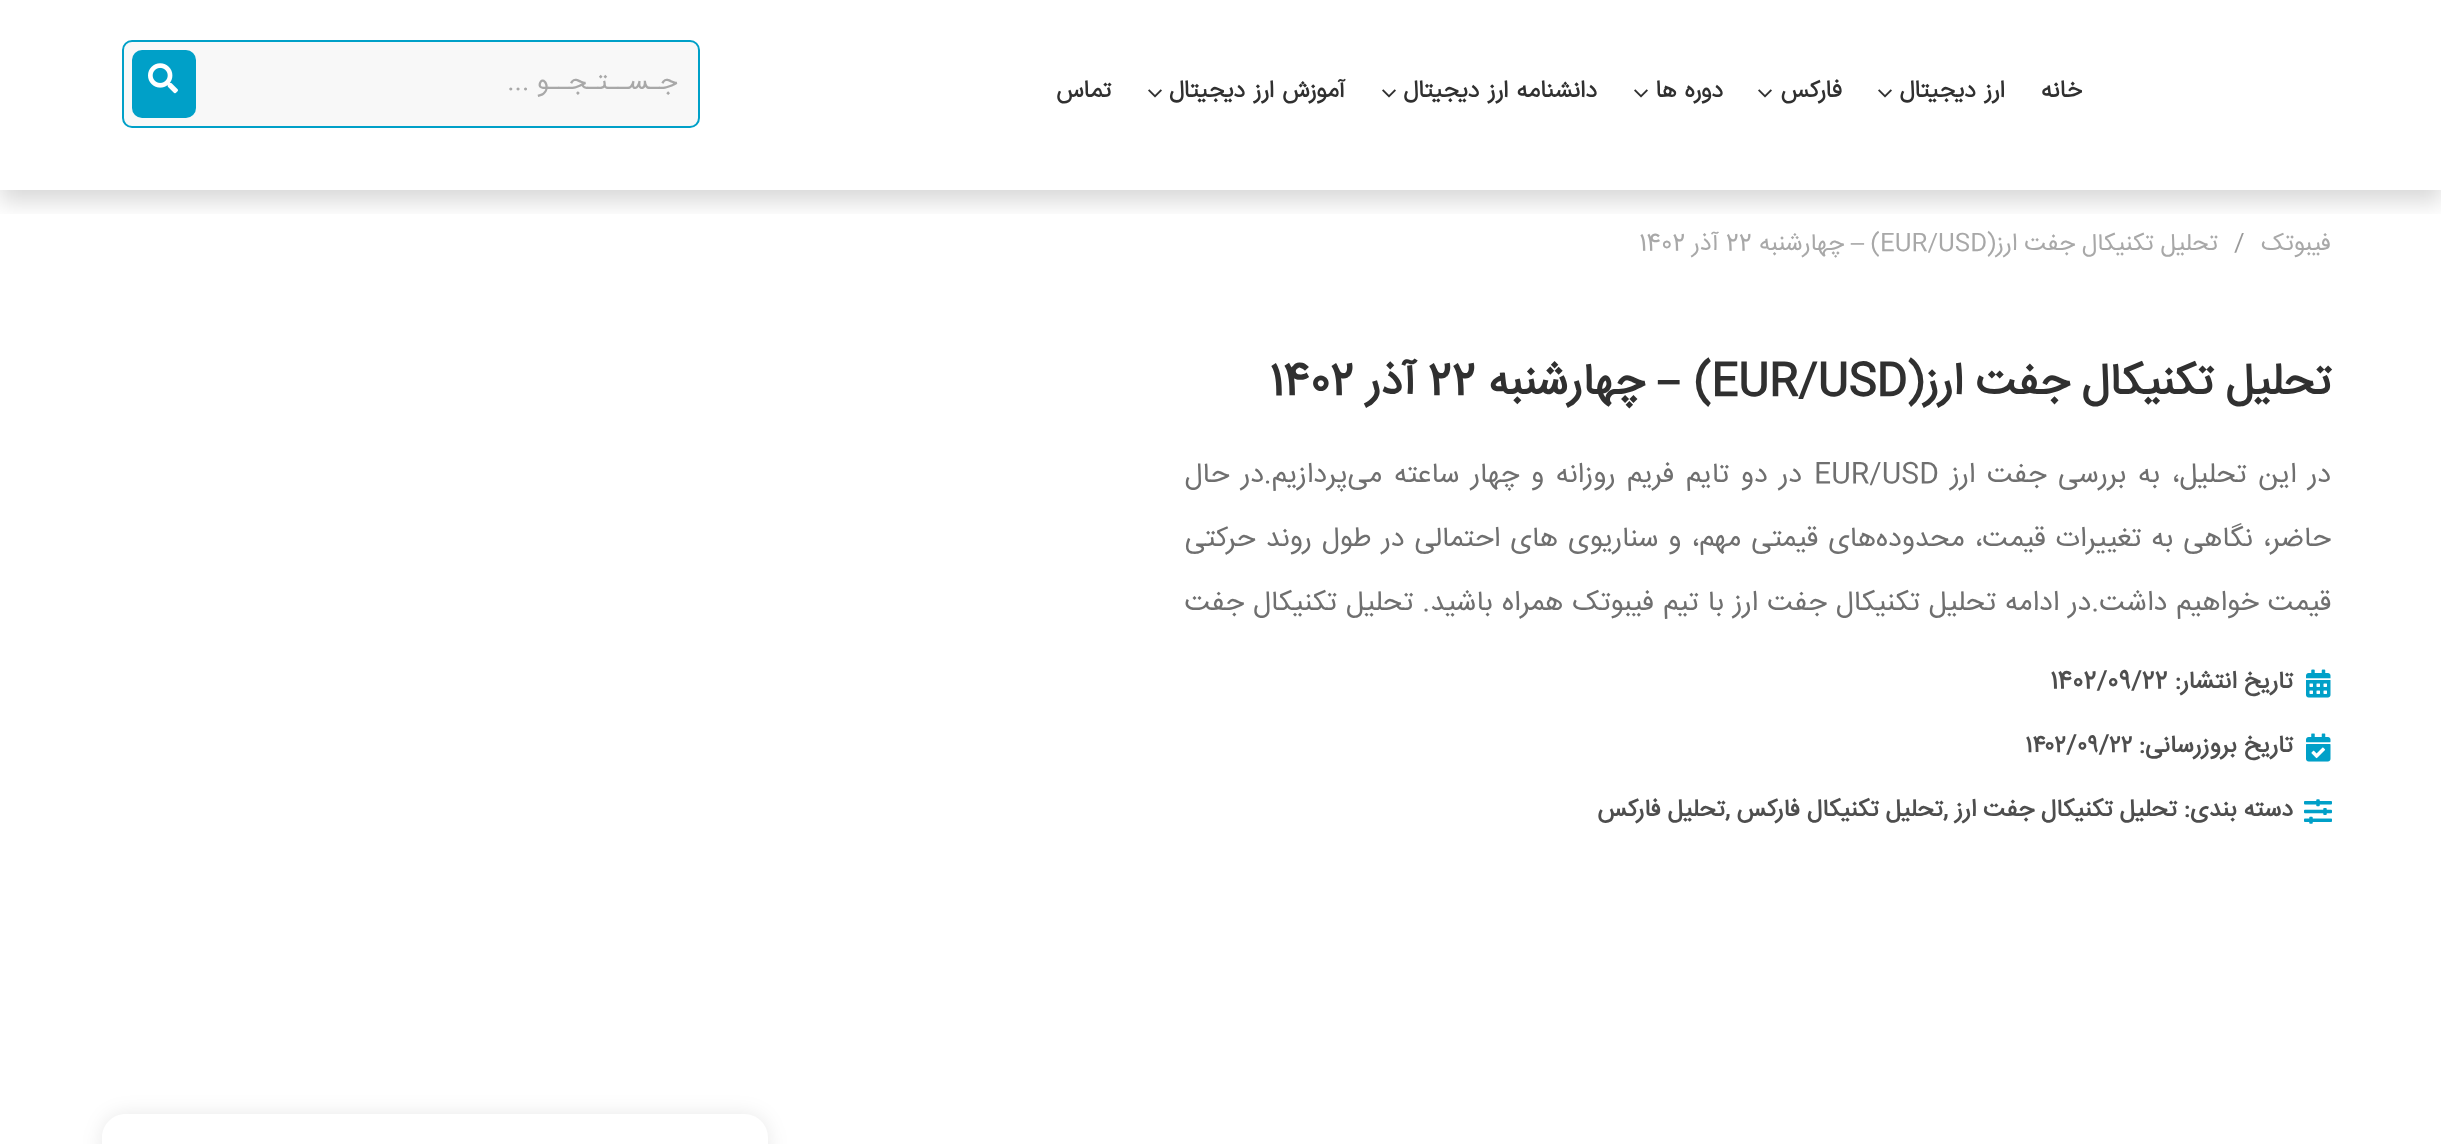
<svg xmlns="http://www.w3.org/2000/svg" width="2441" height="1144">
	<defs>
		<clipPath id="clip1"><rect x="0" y="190" width="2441" height="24" /></clipPath>
		<clipPath id="clip2"><path d="M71 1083H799V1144H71ZM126 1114H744C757.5 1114 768 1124.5 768 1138V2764C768 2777.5 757.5 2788 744 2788H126C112.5 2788 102 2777.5 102 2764V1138C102 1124.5 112.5 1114 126 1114Z" clip-rule="evenodd" /></clipPath>
	</defs>
	<rect width="100%" height="100%" fill="#FFFFFF" />
	<g clip-path="url(#clip1)">
		<rect x="0" y="12" width="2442" height="190" fill="#000000" fill-opacity="0.15" filter="blur(11px)" />
	</g>
	<g font-family="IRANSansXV" font-size="23" font-weight="700" direction="rtl" fill="#303030">
		<text x="2082" y="97">خانه</text>
		<text x="2005" y="97">ارز دیجیتال</text>
	</g>
	<image x="1878" y="89" width="14" height="9" href="assets/img1.png" />
	<text x="1842" y="97" font-family="IRANSansXV" font-size="23" font-weight="700" direction="rtl" fill="#303030">فارکس</text>
	<image x="1758" y="89" width="14" height="9" href="assets/img1.png" />
	<text x="1723" y="97" font-family="IRANSansXV" font-size="23" font-weight="700" direction="rtl" fill="#303030">دوره ها</text>
	<image x="1634" y="89" width="14" height="9" href="assets/img1.png" />
	<text x="1597" y="97" font-family="IRANSansXV" font-size="23" font-weight="700" direction="rtl" fill="#303030">دانشنامه ارز دیجیتال</text>
	<image x="1382" y="89" width="14" height="9" href="assets/img1.png" />
	<text x="1345" y="97" font-family="IRANSansXV" font-size="23" font-weight="700" direction="rtl" fill="#303030">آموزش ارز دیجیتال</text>
	<image x="1148" y="89" width="14" height="9" href="assets/img1.png" />
	<text x="1111" y="97" font-family="IRANSansXV" font-size="23" font-weight="700" direction="rtl" fill="#303030">تماس</text>
	<rect x="123" y="41" width="576" height="86" rx="9" fill="#F8F8F8" stroke="#00A0C8" stroke-width="2" />
	<text x="677" y="89" font-family="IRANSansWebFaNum" font-size="26" direction="rtl" fill="#A8A8A8">جـســتـجــو ...</text>
	<rect x="132" y="50" width="64" height="68" rx="10" fill="#00A0C8" />
	<image x="148" y="63" width="30" height="31" href="assets/img2.png" />
	<text x="2331" y="250" font-family="IRANSansWebFaNum" font-size="24" direction="rtl" fill="#A8A8A8">فیبوتک</text>
	<text x="2234" y="250" font-family="IRANSansWebFaNum" font-size="24" fill="#999999">/</text>
	<text x="2218" y="250" font-family="IRANSansWebFaNum" font-size="24" direction="rtl" fill="#A8A8A8">تحلیل تکنیکال جفت ارز(</text>
	<text x="1880" y="250" font-family="IRANSansWebFaNum" font-size="24" fill="#A8A8A8">EUR/USD</text>
	<text x="1880" y="250" font-family="IRANSansWebFaNum" font-size="24" direction="rtl" fill="#A8A8A8">)</text>
	<text x="1864" y="250" font-family="Liberation Sans" font-size="24" direction="rtl" fill="#A8A8A8">–</text>
	<text x="1844" y="250" font-family="IRANSansWebFaNum" font-size="24" direction="rtl" fill="#A8A8A8">چهارشنبه</text>
	<text x="1726" y="250" font-family="IRANSansWebFaNum" font-size="24" fill="#A8A8A8">22</text>
	<text x="1719" y="250" font-family="IRANSansWebFaNum" font-size="24" direction="rtl" fill="#A8A8A8">آذر</text>
	<text x="1639" y="250" font-family="IRANSansWebFaNum" font-size="24" fill="#A8A8A8">1402</text>
	<text x="2331" y="394" font-family="IRANSansWebFaNum" font-size="44" font-weight="700" direction="rtl" fill="#303030">تحلیل تکنیکال جفت ارز(</text>
	<text x="1711" y="394" font-family="IRANSansWebFaNum" font-size="44" font-weight="700" fill="#303030">EUR/USD</text>
	<text x="1711" y="394" font-family="IRANSansWebFaNum" font-size="44" font-weight="700" direction="rtl" fill="#303030">)</text>
	<text x="1681" y="394" font-family="Liberation Sans" font-size="44" font-weight="700" direction="rtl" fill="#303030">–</text>
	<text x="1644" y="394" font-family="IRANSansWebFaNum" font-size="44" font-weight="700" direction="rtl" fill="#303030">چهارشنبه</text>
	<text x="1428" y="394" font-family="IRANSansWebFaNum" font-size="44" font-weight="700" fill="#303030">22</text>
	<text x="1416" y="394" font-family="IRANSansWebFaNum" font-size="44" font-weight="700" direction="rtl" fill="#303030">آذر</text>
	<text x="1269" y="394" font-family="IRANSansWebFaNum" font-size="44" font-weight="700" fill="#303030">1402</text>
	<text x="2331" y="482" word-spacing="3.75" font-family="IRANSansWebFaNum" font-size="28" direction="rtl" fill="#6F6F6F">در این تحلیل، به بررسی جفت ارز</text>
	<text x="1814" y="482" font-family="IRANSansWebFaNum" font-size="28" fill="#6F6F6F">EUR/USD</text>
	<g font-family="IRANSansWebFaNum" font-size="28" direction="rtl" fill="#6F6F6F">
		<text x="1802" y="482" word-spacing="3.75">در دو تایم فریم روزانه و چهار ساعته می‌پردازیم.در حال</text>
		<text x="2331" y="546" word-spacing="2.1">حاضر، نگاهی به تغییرات قیمت، محدوده‌های قیمتی مهم، و سناریوی های احتمالی در طول روند حرکتی</text>
		<text x="2331" y="610" word-spacing="1.25">قیمت خواهیم داشت.در ادامه تحلیل تکنیکال جفت ارز با تیم فیبوتک همراه باشید. تحلیل تکنیکال جفت</text>
	</g>
	<image x="2306" y="669" width="25" height="29" href="assets/img3.png" />
	<text x="2293" y="688" font-family="IRANSansWebFaNum" font-size="24" font-weight="700" direction="rtl" fill="#4E4E4E">تاریخ انتشار:</text>
	<text x="2050" y="688" font-family="IRANSansWebFaNum" font-size="24" font-weight="700" fill="#4E4E4E">1402/09/22</text>
	<image x="2306" y="733" width="25" height="29" href="assets/img4.png" />
	<text x="2293" y="752" font-family="IRANSansWebFaNum" font-size="24" font-weight="700" direction="rtl" fill="#4E4E4E">تاریخ بروزرسانی:</text>
	<text x="2025" y="752" font-family="IRANSansWebFaNum" font-size="24" font-weight="700" fill="#4E4E4E">۱۴۰۲/۰۹/۲۲</text>
	<image x="2304" y="799" width="28" height="25" href="assets/img5.png" />
	<g font-family="IRANSansWebFaNum" font-size="24" font-weight="700" direction="rtl" fill="#4E4E4E">
		<text x="2293" y="816">دسته بندی:</text>
		<text x="2177" y="816">تحلیل تکنیکال جفت ارز</text>
	</g>
	<text x="1943" y="816" font-family="IRANSansWebFaNum" font-size="24" font-weight="700" fill="#4E4E4E">,</text>
	<text x="1943" y="816" font-family="IRANSansWebFaNum" font-size="24" font-weight="700" direction="rtl" fill="#4E4E4E">تحلیل تکنیکال فارکس</text>
	<text x="1725" y="816" font-family="IRANSansWebFaNum" font-size="24" font-weight="700" fill="#4E4E4E">,</text>
	<text x="1725" y="816" font-family="IRANSansWebFaNum" font-size="24" font-weight="700" direction="rtl" fill="#4E4E4E">تحلیل فارکس</text>
	<g clip-path="url(#clip2)">
		<rect x="102" y="1114" width="666" height="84" rx="24" fill="#000000" fill-opacity="0.09" filter="blur(10px)" />
	</g>
</svg>
